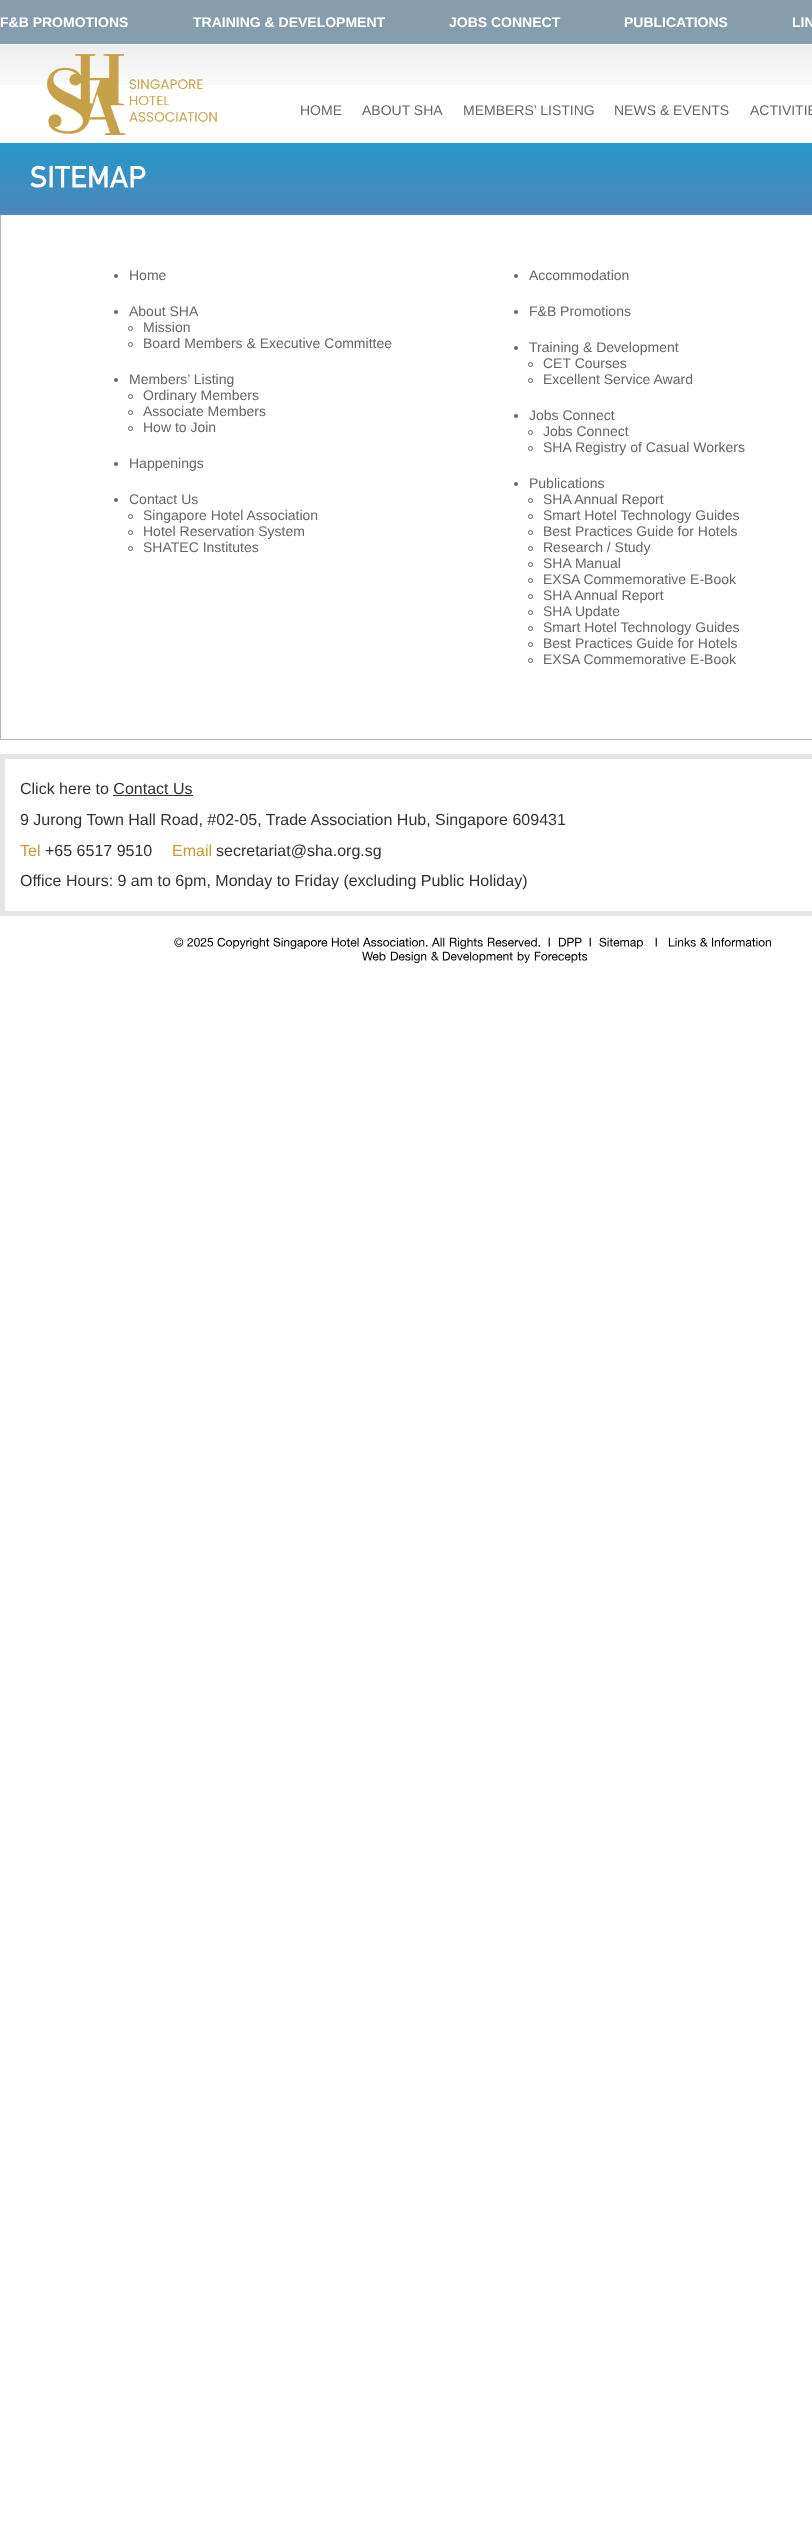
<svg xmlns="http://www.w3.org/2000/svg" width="812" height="2530">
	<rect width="100%" height="100%" fill="#FFFFFF" />
	<rect x="0" y="0" width="812" height="44" fill="#869DAD" />
	<g font-family="Liberation Sans" font-size="14" font-weight="700" fill="#FFFFFF">
		<text x="0" y="27">F&amp;B PROMOTIONS</text>
		<text x="193" y="27">TRAINING &amp; DEVELOPMENT</text>
		<text x="449" y="27">JOBS CONNECT</text>
		<text x="624" y="27">PUBLICATIONS</text>
		<text x="792" y="27">LIN</text>
	</g>
	<image x="0" y="45" width="812" height="40" href="assets/img1.png" />
	<image x="46" y="54" width="172" height="81" href="assets/img2.png" />
	<g font-family="Liberation Sans" font-size="14" fill="#666666">
		<text x="300" y="115">HOME</text>
		<text x="362" y="115">ABOUT SHA</text>
		<text x="463" y="115">MEMBERS’ LISTING</text>
		<text x="614" y="115">NEWS &amp; EVENTS</text>
		<text x="750" y="115">ACTIVITIE</text>
	</g>
	<image x="0" y="143" width="812" height="72" href="assets/img3.png" />
	<image x="30" y="165" width="116" height="23" href="assets/img4.png" />
	<rect x="0" y="739" width="812" height="1" fill="#B3B8BD" />
	<rect x="0" y="215" width="1" height="525" fill="#B3B8BD" />
	<circle cx="116" cy="276" r="2" fill="#666666" />
	<text x="129" y="280" font-family="Liberation Sans" font-size="14" fill="#666666">Home</text>
	<circle cx="116" cy="312" r="2" fill="#666666" />
	<text x="129" y="316" font-family="Liberation Sans" font-size="14" fill="#666666">About SHA</text>
	<circle cx="130.5" cy="328.5" r="2" fill="none" stroke="#666666" />
	<text x="143" y="332" font-family="Liberation Sans" font-size="14" fill="#666666">Mission</text>
	<circle cx="130.5" cy="344.5" r="2" fill="none" stroke="#666666" />
	<text x="143" y="348" font-family="Liberation Sans" font-size="14" fill="#666666">Board Members &amp; Executive Committee</text>
	<circle cx="116" cy="380" r="2" fill="#666666" />
	<text x="129" y="384" font-family="Liberation Sans" font-size="14" fill="#666666">Members’ Listing</text>
	<circle cx="130.5" cy="396.5" r="2" fill="none" stroke="#666666" />
	<text x="143" y="400" font-family="Liberation Sans" font-size="14" fill="#666666">Ordinary Members</text>
	<circle cx="130.5" cy="412.5" r="2" fill="none" stroke="#666666" />
	<text x="143" y="416" font-family="Liberation Sans" font-size="14" fill="#666666">Associate Members</text>
	<circle cx="130.5" cy="428.5" r="2" fill="none" stroke="#666666" />
	<text x="143" y="432" font-family="Liberation Sans" font-size="14" fill="#666666">How to Join</text>
	<circle cx="116" cy="464" r="2" fill="#666666" />
	<text x="129" y="468" font-family="Liberation Sans" font-size="14" fill="#666666">Happenings</text>
	<circle cx="116" cy="500" r="2" fill="#666666" />
	<text x="129" y="504" font-family="Liberation Sans" font-size="14" fill="#666666">Contact Us</text>
	<circle cx="130.5" cy="516.5" r="2" fill="none" stroke="#666666" />
	<text x="143" y="520" font-family="Liberation Sans" font-size="14" fill="#666666">Singapore Hotel Association</text>
	<circle cx="130.5" cy="532.5" r="2" fill="none" stroke="#666666" />
	<text x="143" y="536" font-family="Liberation Sans" font-size="14" fill="#666666">Hotel Reservation System</text>
	<circle cx="130.5" cy="548.5" r="2" fill="none" stroke="#666666" />
	<text x="143" y="552" font-family="Liberation Sans" font-size="14" fill="#666666">SHATEC Institutes</text>
	<circle cx="516" cy="276" r="2" fill="#666666" />
	<text x="529" y="280" font-family="Liberation Sans" font-size="14" fill="#666666">Accommodation</text>
	<circle cx="516" cy="312" r="2" fill="#666666" />
	<text x="529" y="316" font-family="Liberation Sans" font-size="14" fill="#666666">F&amp;B Promotions</text>
	<circle cx="516" cy="348" r="2" fill="#666666" />
	<text x="529" y="352" font-family="Liberation Sans" font-size="14" fill="#666666">Training &amp; Development</text>
	<circle cx="530.5" cy="364.5" r="2" fill="none" stroke="#666666" />
	<text x="543" y="368" font-family="Liberation Sans" font-size="14" fill="#666666">CET Courses</text>
	<circle cx="530.5" cy="380.5" r="2" fill="none" stroke="#666666" />
	<text x="543" y="384" font-family="Liberation Sans" font-size="14" fill="#666666">Excellent Service Award</text>
	<circle cx="516" cy="416" r="2" fill="#666666" />
	<text x="529" y="420" font-family="Liberation Sans" font-size="14" fill="#666666">Jobs Connect</text>
	<circle cx="530.5" cy="432.5" r="2" fill="none" stroke="#666666" />
	<text x="543" y="436" font-family="Liberation Sans" font-size="14" fill="#666666">Jobs Connect</text>
	<circle cx="530.5" cy="448.5" r="2" fill="none" stroke="#666666" />
	<text x="543" y="452" font-family="Liberation Sans" font-size="14" fill="#666666">SHA Registry of Casual Workers</text>
	<circle cx="516" cy="484" r="2" fill="#666666" />
	<text x="529" y="488" font-family="Liberation Sans" font-size="14" fill="#666666">Publications</text>
	<circle cx="530.5" cy="500.5" r="2" fill="none" stroke="#666666" />
	<text x="543" y="504" font-family="Liberation Sans" font-size="14" fill="#666666">SHA Annual Report</text>
	<circle cx="530.5" cy="516.5" r="2" fill="none" stroke="#666666" />
	<text x="543" y="520" font-family="Liberation Sans" font-size="14" fill="#666666">Smart Hotel Technology Guides</text>
	<circle cx="530.5" cy="532.5" r="2" fill="none" stroke="#666666" />
	<text x="543" y="536" font-family="Liberation Sans" font-size="14" fill="#666666">Best Practices Guide for Hotels</text>
	<circle cx="530.5" cy="548.5" r="2" fill="none" stroke="#666666" />
	<text x="543" y="552" font-family="Liberation Sans" font-size="14" fill="#666666">Research / Study</text>
	<circle cx="530.5" cy="564.5" r="2" fill="none" stroke="#666666" />
	<text x="543" y="568" font-family="Liberation Sans" font-size="14" fill="#666666">SHA Manual</text>
	<circle cx="530.5" cy="580.5" r="2" fill="none" stroke="#666666" />
	<text x="543" y="584" font-family="Liberation Sans" font-size="14" fill="#666666">EXSA Commemorative E-Book</text>
	<circle cx="530.5" cy="596.5" r="2" fill="none" stroke="#666666" />
	<text x="543" y="600" font-family="Liberation Sans" font-size="14" fill="#666666">SHA Annual Report</text>
	<circle cx="530.5" cy="612.5" r="2" fill="none" stroke="#666666" />
	<text x="543" y="616" font-family="Liberation Sans" font-size="14" fill="#666666">SHA Update</text>
	<circle cx="530.5" cy="628.5" r="2" fill="none" stroke="#666666" />
	<text x="543" y="632" font-family="Liberation Sans" font-size="14" fill="#666666">Smart Hotel Technology Guides</text>
	<circle cx="530.5" cy="644.5" r="2" fill="none" stroke="#666666" />
	<text x="543" y="648" font-family="Liberation Sans" font-size="14" fill="#666666">Best Practices Guide for Hotels</text>
	<circle cx="530.5" cy="660.5" r="2" fill="none" stroke="#666666" />
	<text x="543" y="664" font-family="Liberation Sans" font-size="14" fill="#666666">EXSA Commemorative E-Book</text>
	<rect x="2.5" y="756.5" width="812" height="157" fill="none" stroke="#E5E5E5" stroke-width="5" />
	<text x="20" y="794" font-family="Liberation Sans" font-size="16" fill="#333333">Click here to Contact Us</text>
	<rect x="113" y="795" width="80" height="1" fill="#333333" />
	<text x="20" y="825" font-family="Liberation Sans" font-size="16" fill="#333333">9 Jurong Town Hall Road, #02-05, Trade Association Hub, Singapore 609431</text>
	<text x="20" y="856" font-family="Liberation Sans" font-size="16" fill="#CC9933">Tel</text>
	<text x="45" y="856" font-family="Liberation Sans" font-size="16" fill="#333333">+65 6517 9510</text>
	<text x="172" y="856" font-family="Liberation Sans" font-size="16" fill="#CC9933">Email</text>
	<g font-family="Liberation Sans" font-size="16" fill="#333333">
		<text x="216" y="856">secretariat@sha.org.sg</text>
		<text x="20" y="886">Office Hours: 9 am to 6pm, Monday to Friday (excluding Public Holiday)</text>
	</g>
	<image x="174" y="937" width="10" height="10" href="assets/img5.png" />
	<image x="187" y="938" width="27" height="9" href="assets/img6.png" />
	<image x="217" y="937" width="53" height="12" href="assets/img7.png" />
	<image x="273" y="937" width="55" height="12" href="assets/img8.png" />
	<image x="331" y="937" width="28" height="10" href="assets/img9.png" />
	<image x="363" y="937" width="65" height="10" href="assets/img10.png" />
	<image x="432" y="937" width="13" height="10" href="assets/img11.png" />
	<image x="449" y="937" width="34" height="12" href="assets/img12.png" />
	<image x="487" y="937" width="53" height="10" href="assets/img13.png" />
	<image x="548" y="937" width="2" height="10" href="assets/img14.png" />
	<image x="558" y="937" width="24" height="10" href="assets/img15.png" />
	<image x="589" y="937" width="2" height="10" href="assets/img14.png" />
	<image x="599" y="937" width="44" height="12" href="assets/img16.png" />
	<image x="655" y="937" width="2" height="10" href="assets/img14.png" />
	<image x="668" y="937" width="28" height="10" href="assets/img17.png" />
	<image x="700" y="937" width="8" height="10" href="assets/img18.png" />
	<image x="712" y="937" width="59" height="10" href="assets/img19.png" />
	<image x="362" y="951" width="24" height="10" href="assets/img20.png" />
	<image x="390" y="951" width="37" height="12" href="assets/img21.png" />
	<image x="431" y="951" width="8" height="10" href="assets/img18.png" />
	<image x="442" y="951" width="71" height="12" href="assets/img22.png" />
	<image x="517" y="951" width="13" height="12" href="assets/img23.png" />
	<image x="534" y="951" width="54" height="12" href="assets/img24.png" />
</svg>
